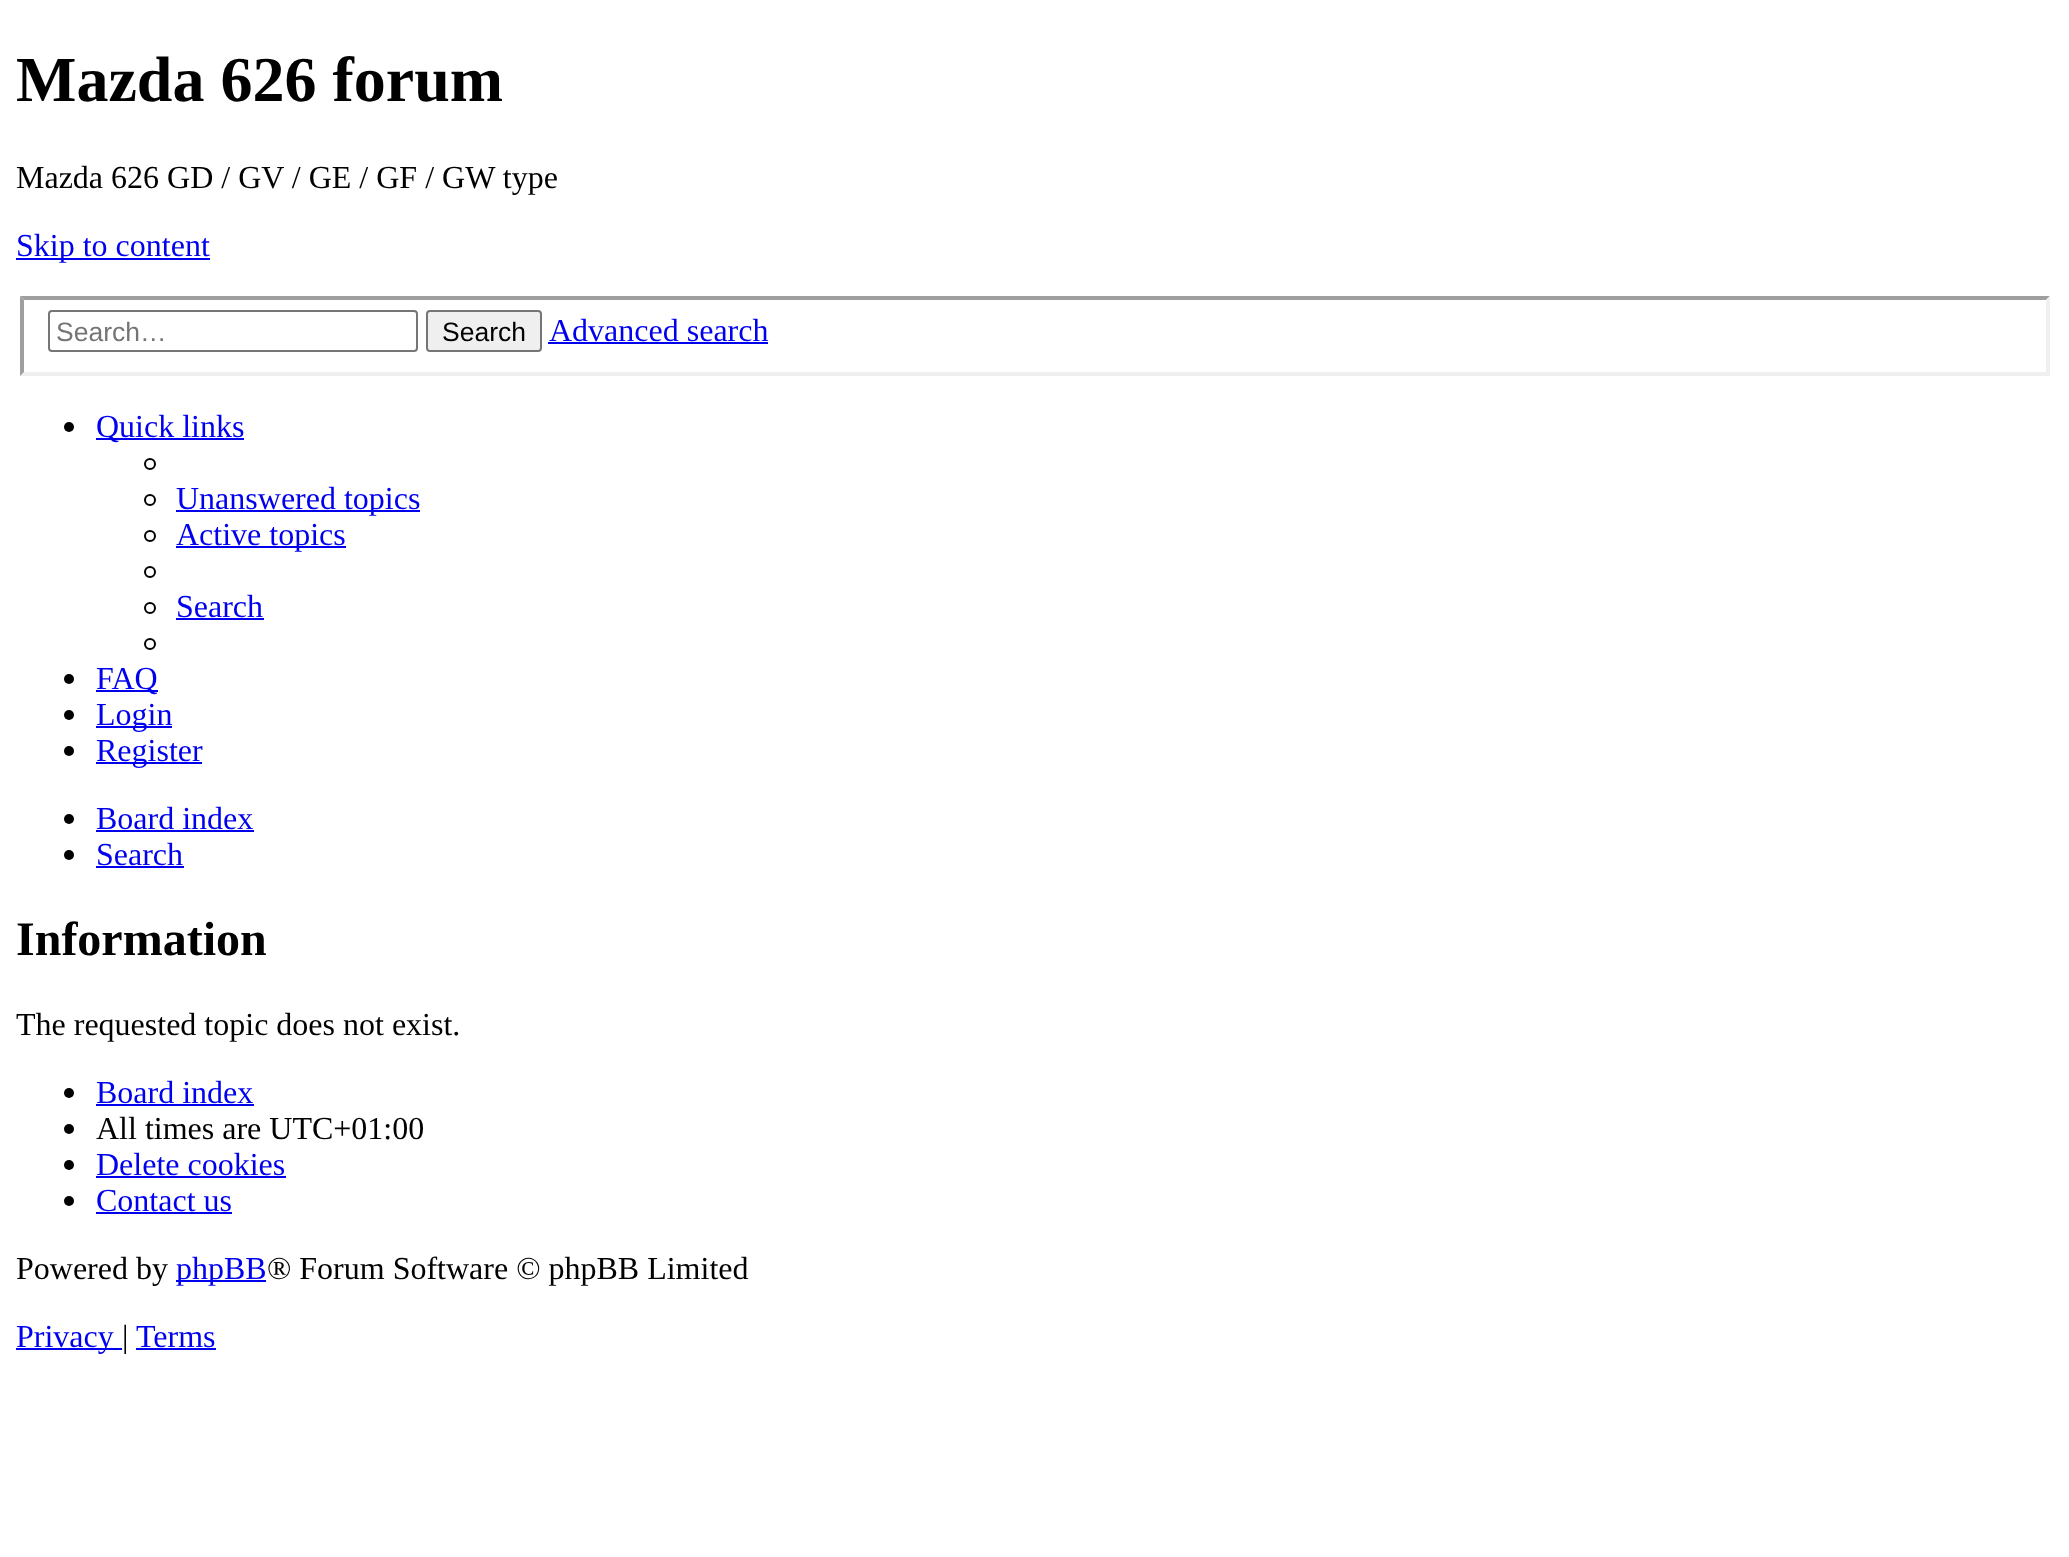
<svg xmlns="http://www.w3.org/2000/svg" width="2069" height="1557">
	<rect width="100%" height="100%" fill="#FFFFFF" />
	<text x="16" y="101" font-family="Liberation Serif" font-size="64" font-weight="700" fill="#000000">Mazda 626 forum</text>
	<text x="16" y="188" font-family="Liberation Serif" font-size="32" fill="#000000">Mazda 626 GD / GV / GE / GF / GW type</text>
	<rect x="16" y="258" width="194" height="2" fill="#0000EE" />
	<text x="16" y="256" font-family="Liberation Serif" font-size="32" fill="#0000EE">Skip to content</text>
	<path d="M20 296H2050L2046 300H24Z" fill="#9F9F9F" />
	<path d="M2050 296V376L2046 372V300Z" fill="#EFEFEF" />
	<path d="M2050 376H20L24 372H2046Z" fill="#EFEFEF" />
	<path d="M20 376V296L24 300V372Z" fill="#9F9F9F" />
	<rect x="49" y="311" width="368" height="40" rx="3" fill="none" stroke="#767676" stroke-width="2" />
	<text x="56" y="341" font-family="Liberation Sans" font-size="26.5" fill="#757575">Search…</text>
	<rect x="427" y="311" width="114" height="40" rx="3" fill="#EFEFEF" stroke="#767676" stroke-width="2" />
	<text x="442" y="341" font-family="Liberation Sans" font-size="26.5" fill="#000000">Search</text>
	<text x="549" y="341" font-family="Liberation Serif" font-size="32" fill="#0000EE">Advanced search</text>
	<rect x="548" y="342" width="220" height="2" fill="#0000EE" />
	<circle cx="69" cy="427" r="5" fill="#000000" />
	<rect x="96" y="438" width="148" height="2" fill="#0000EE" />
	<text x="96" y="437" font-family="Liberation Serif" font-size="32" fill="#0000EE">Quick links</text>
	<circle cx="150" cy="464" r="5" fill="none" stroke="#000000" stroke-width="2" />
	<circle cx="150" cy="500" r="5" fill="none" stroke="#000000" stroke-width="2" />
	<rect x="176" y="510" width="244" height="2" fill="#0000EE" />
	<text x="176" y="509" font-family="Liberation Serif" font-size="32" fill="#0000EE">Unanswered topics</text>
	<circle cx="150" cy="536" r="5" fill="none" stroke="#000000" stroke-width="2" />
	<rect x="176" y="546" width="170" height="2" fill="#0000EE" />
	<text x="176" y="545" font-family="Liberation Serif" font-size="32" fill="#0000EE">Active topics</text>
	<circle cx="150" cy="572" r="5" fill="none" stroke="#000000" stroke-width="2" />
	<circle cx="150" cy="608" r="5" fill="none" stroke="#000000" stroke-width="2" />
	<text x="176" y="617" font-family="Liberation Serif" font-size="32" fill="#0000EE">Search</text>
	<rect x="176" y="618" width="88" height="2" fill="#0000EE" />
	<circle cx="150" cy="644" r="5" fill="none" stroke="#000000" stroke-width="2" />
	<circle cx="69" cy="679" r="5" fill="#000000" />
	<rect x="96" y="690" width="62" height="2" fill="#0000EE" />
	<text x="96" y="689" font-family="Liberation Serif" font-size="32" fill="#0000EE">FAQ</text>
	<circle cx="69" cy="715" r="5" fill="#000000" />
	<rect x="96" y="726" width="76" height="2" fill="#0000EE" />
	<text x="96" y="725" font-family="Liberation Serif" font-size="32" fill="#0000EE">Login</text>
	<circle cx="69" cy="751" r="5" fill="#000000" />
	<rect x="96" y="762" width="106" height="2" fill="#0000EE" />
	<text x="96" y="761" font-family="Liberation Serif" font-size="32" fill="#0000EE">Register</text>
	<circle cx="69" cy="819" r="5" fill="#000000" />
	<text x="96" y="829" font-family="Liberation Serif" font-size="32" fill="#0000EE">Board index</text>
	<rect x="96" y="830" width="158" height="2" fill="#0000EE" />
	<circle cx="69" cy="855" r="5" fill="#000000" />
	<text x="96" y="865" font-family="Liberation Serif" font-size="32" fill="#0000EE">Search</text>
	<rect x="96" y="866" width="88" height="2" fill="#0000EE" />
	<text x="16" y="955" font-family="Liberation Serif" font-size="48" font-weight="700" fill="#000000">Information</text>
	<text x="16" y="1035" font-family="Liberation Serif" font-size="32" fill="#000000">The requested topic does not exist.</text>
	<circle cx="69" cy="1093" r="5" fill="#000000" />
	<text x="96" y="1103" font-family="Liberation Serif" font-size="32" fill="#0000EE">Board index</text>
	<rect x="96" y="1104" width="158" height="2" fill="#0000EE" />
	<circle cx="69" cy="1129" r="5" fill="#000000" />
	<text x="96" y="1139" font-family="Liberation Serif" font-size="32" fill="#000000">All times are UTC+01:00</text>
	<circle cx="69" cy="1165" r="5" fill="#000000" />
	<text x="96" y="1175" font-family="Liberation Serif" font-size="32" fill="#0000EE">Delete cookies</text>
	<rect x="96" y="1176" width="190" height="2" fill="#0000EE" />
	<circle cx="69" cy="1201" r="5" fill="#000000" />
	<text x="96" y="1211" font-family="Liberation Serif" font-size="32" fill="#0000EE">Contact us</text>
	<rect x="96" y="1212" width="136" height="2" fill="#0000EE" />
	<text x="16" y="1279" font-family="Liberation Serif" font-size="32" fill="#000000">Powered by</text>
	<rect x="176" y="1280" width="90" height="2" fill="#0000EE" />
	<text x="176" y="1279" font-family="Liberation Serif" font-size="32" fill="#0000EE">phpBB</text>
	<text x="267" y="1279" font-family="Liberation Serif" font-size="32" fill="#000000">® Forum Software © phpBB Limited</text>
	<rect x="16" y="1348" width="106" height="2" fill="#0000EE" />
	<text x="16" y="1347" font-family="Liberation Serif" font-size="32" fill="#0000EE">Privacy</text>
	<text x="122" y="1347" font-family="Liberation Serif" font-size="32" fill="#000000">|</text>
	<text x="136" y="1347" font-family="Liberation Serif" font-size="32" fill="#0000EE">Terms</text>
	<rect x="136" y="1348" width="80" height="2" fill="#0000EE" />
</svg>
